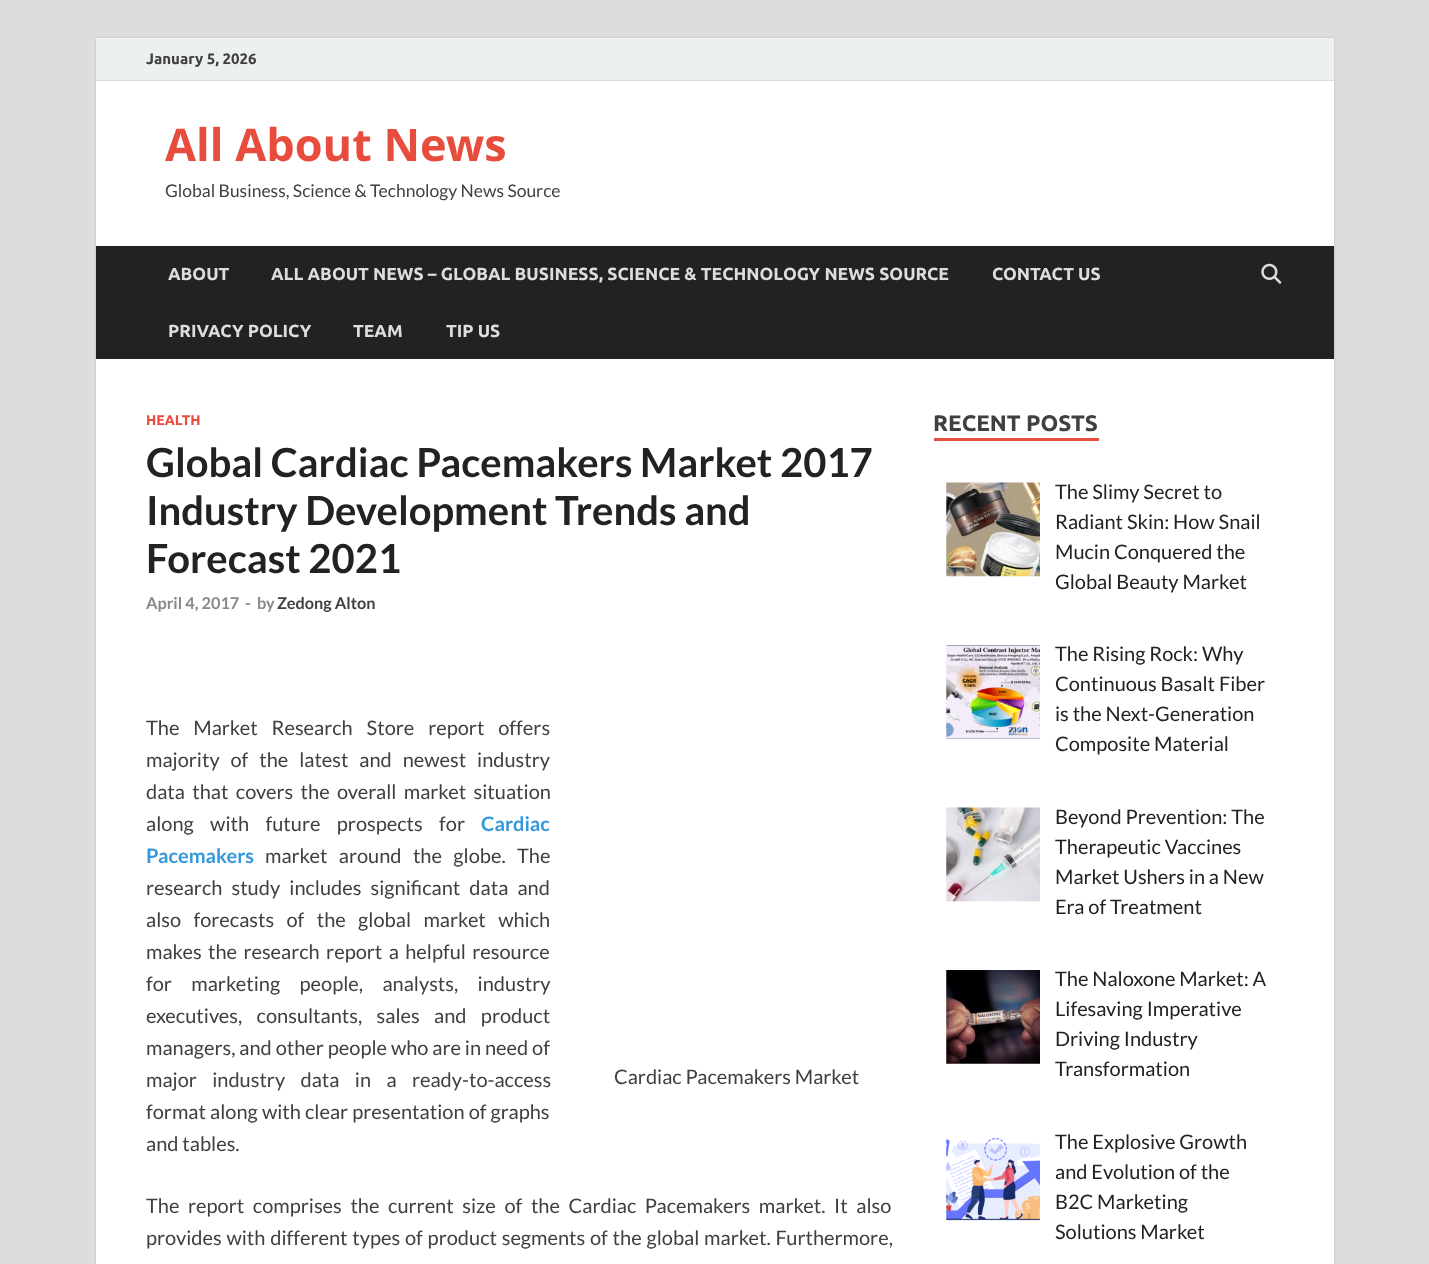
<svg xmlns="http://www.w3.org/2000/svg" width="1429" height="1264">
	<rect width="100%" height="100%" fill="#DDDDDD" />
	<rect x="96" y="38" width="1238" height="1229" fill="#BBBBBB" filter="blur(1px)" />
	<rect x="96" y="81" width="1238" height="1183" fill="#FFFFFF" />
	<rect x="96" y="38" width="1238" height="42" fill="#ECF0F1" />
	<rect x="96" y="80" width="1238" height="1" fill="#DDDDDD" />
	<text x="146" y="64" font-family="Ubuntu" font-size="15" font-weight="700" fill="#404040">January 5, 2026</text>
	<text x="165" y="161" font-family="Open Sans" font-size="45" font-weight="700" fill="#E74C3C">All About News</text>
	<text x="165" y="197" font-family="Lato" font-size="17.5" fill="#404040">Global Business, Science &amp; Technology News Source</text>
	<rect x="96" y="246" width="1238" height="113" fill="#222222" />
	<g font-family="Ubuntu" font-size="17.5" font-weight="700" fill="#DDDDDD">
		<text x="168" y="280">ABOUT</text>
		<text x="271" y="280">ALL ABOUT NEWS – GLOBAL BUSINESS, SCIENCE &amp; TECHNOLOGY NEWS SOURCE</text>
		<text x="992" y="280">CONTACT US</text>
		<text x="168" y="337">PRIVACY POLICY</text>
		<text x="353" y="337">TEAM</text>
		<text x="446" y="337">TIP US</text>
	</g>
	<image x="1261" y="263" width="21" height="21" href="assets/img1.png" />
	<text x="146" y="425" font-family="Ubuntu" font-size="14" font-weight="700" fill="#E74C3C">HEALTH</text>
	<g font-family="Lato" font-size="40" font-weight="700" fill="#222222">
		<text x="146" y="477">Global Cardiac Pacemakers Market 2017</text>
		<text x="146" y="525">Industry Development Trends and</text>
		<text x="146" y="573">Forecast 2021</text>
	</g>
	<g font-family="Lato" font-size="16.25" font-weight="700" fill="#888888">
		<text x="146" y="609">April 4, 2017</text>
		<text x="245" y="609">-</text>
		<text x="257" y="609">by</text>
	</g>
	<text x="277" y="609" font-family="Lato" font-size="16.25" font-weight="700" fill="#404040">Zedong Alton</text>
	<g font-family="Lato" font-size="20" fill="#404040">
		<text x="146" y="735" word-spacing="10">The Market Research Store report offers</text>
		<text x="146" y="767" word-spacing="7">majority of the latest and newest industry</text>
		<text x="146" y="799" word-spacing="3.5">data that covers the overall market situation</text>
		<text x="146" y="831" word-spacing="12.5">along with future prospects for</text>
	</g>
	<g font-family="Lato" font-size="20" font-weight="700" fill="#3498DB">
		<text x="481" y="831">Cardiac</text>
		<text x="146" y="863">Pacemakers</text>
	</g>
	<g font-family="Lato" font-size="20" fill="#404040">
		<text x="265" y="863" word-spacing="7.5">market around the globe. The</text>
		<text x="146" y="895" word-spacing="5.25">research study includes significant data and</text>
		<text x="146" y="927" word-spacing="8.5">also forecasts of the global market which</text>
		<text x="146" y="959" word-spacing="2.5">makes the research report a helpful resource</text>
		<text x="146" y="991" word-spacing="15.5">for marketing people, analysts, industry</text>
		<text x="146" y="1023" word-spacing="10.5">executives, consultants, sales and product</text>
		<text x="146" y="1055">managers, and other people who are in need of</text>
		<text x="146" y="1087" word-spacing="11.5">major industry data in a ready-to-access</text>
		<text x="146" y="1119" word-spacing="0.25">format along with clear presentation of graphs</text>
		<text x="146" y="1151">and tables.</text>
		<text x="614" y="1084">Cardiac Pacemakers Market</text>
		<text x="146" y="1213" word-spacing="4.75">The report comprises the current size of the Cardiac Pacemakers market. It also</text>
		<text x="146" y="1245" word-spacing="0.9">provides with different types of product segments of the global market. Furthermore,</text>
	</g>
	<rect x="934" y="438" width="165" height="3" fill="#E74C3C" />
	<text x="933" y="431" font-family="Ubuntu" font-size="22.5" font-weight="700" fill="#404040">RECENT POSTS</text>
	<image x="946" y="482" width="94" height="95" href="assets/img2.png" />
	<g font-family="Lato" font-size="20" fill="#222222">
		<text x="1055" y="499">The Slimy Secret to</text>
		<text x="1055" y="529">Radiant Skin: How Snail</text>
		<text x="1055" y="559">Mucin Conquered the</text>
		<text x="1055" y="589">Global Beauty Market</text>
	</g>
	<image x="946" y="645" width="94" height="94" href="assets/img3.png" />
	<g font-family="Lato" font-size="20" fill="#222222">
		<text x="1055" y="661">The Rising Rock: Why</text>
		<text x="1055" y="691">Continuous Basalt Fiber</text>
		<text x="1055" y="721">is the Next-Generation</text>
		<text x="1055" y="751">Composite Material</text>
	</g>
	<image x="946" y="807" width="94" height="95" href="assets/img4.png" />
	<g font-family="Lato" font-size="20" fill="#222222">
		<text x="1055" y="824">Beyond Prevention: The</text>
		<text x="1055" y="854">Therapeutic Vaccines</text>
		<text x="1055" y="884">Market Ushers in a New</text>
		<text x="1055" y="914">Era of Treatment</text>
	</g>
	<image x="946" y="970" width="94" height="94" href="assets/img5.png" />
	<g font-family="Lato" font-size="20" fill="#222222">
		<text x="1055" y="986">The Naloxone Market: A</text>
		<text x="1055" y="1016">Lifesaving Imperative</text>
		<text x="1055" y="1046">Driving Industry</text>
		<text x="1055" y="1076">Transformation</text>
	</g>
	<image x="946" y="1137" width="94" height="84" href="assets/img6.png" />
	<g font-family="Lato" font-size="20" fill="#222222">
		<text x="1055" y="1149">The Explosive Growth</text>
		<text x="1055" y="1179">and Evolution of the</text>
		<text x="1055" y="1209">B2C Marketing</text>
		<text x="1055" y="1239">Solutions Market</text>
	</g>
</svg>
